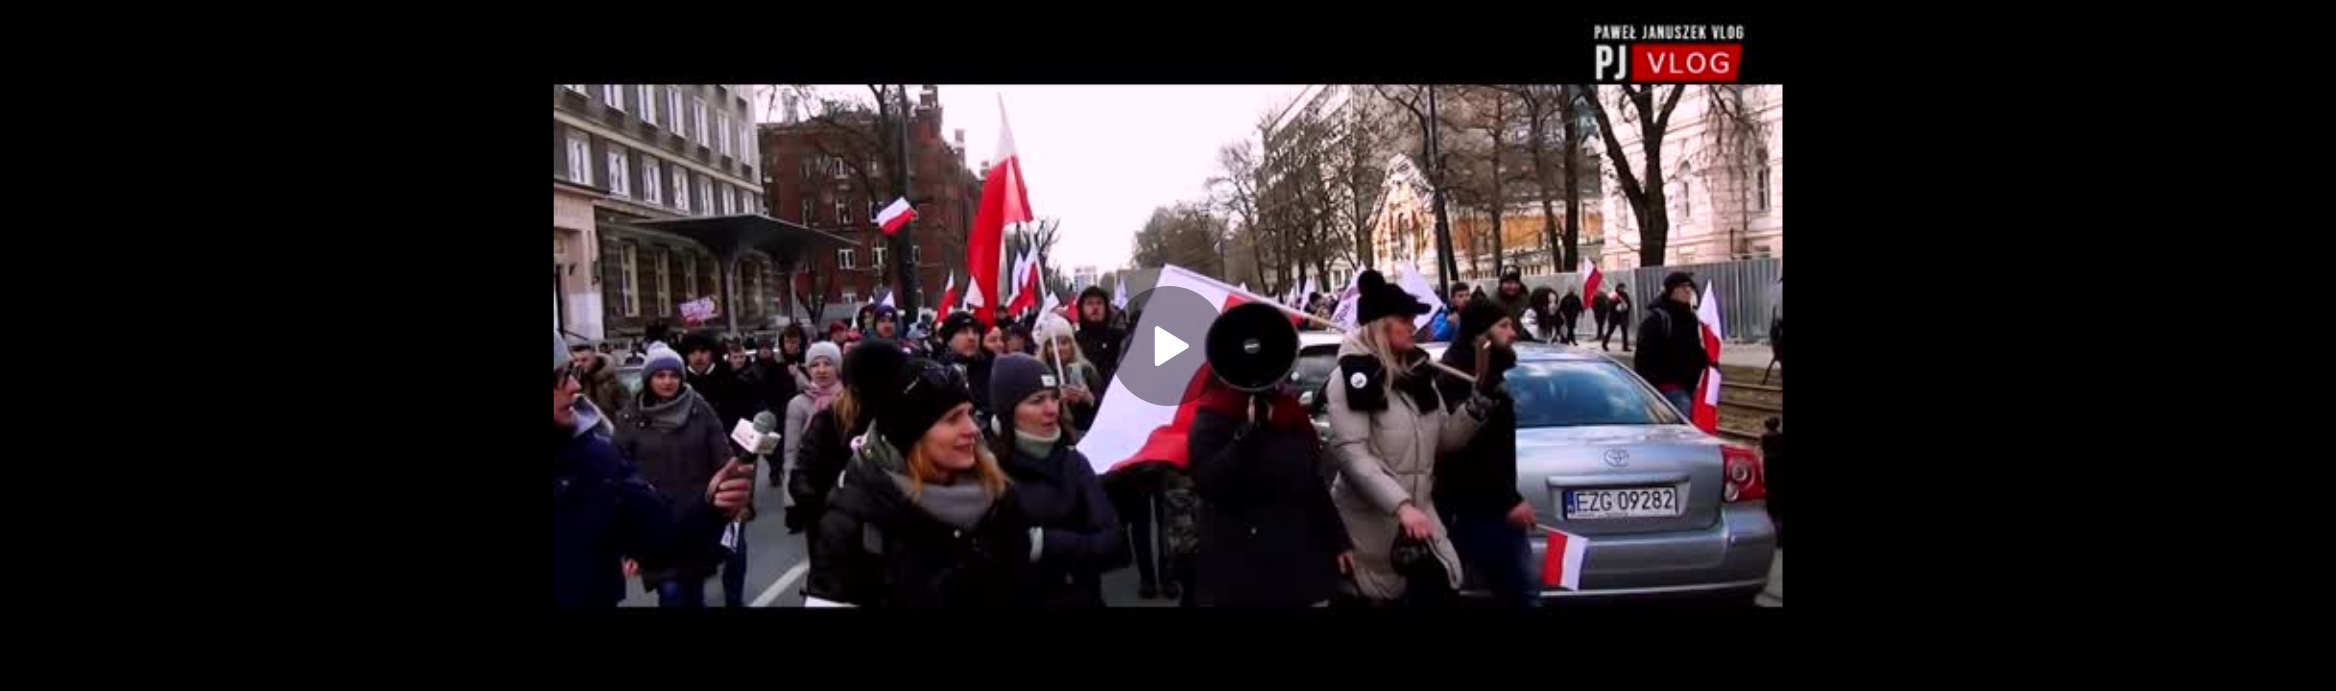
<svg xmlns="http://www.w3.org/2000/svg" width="2336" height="691">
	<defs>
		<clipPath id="clip1"><rect x="1149" y="326" width="40" height="40" /></clipPath>
	</defs>
	<rect width="100%" height="100%" fill="#000000" />
	<image x="553" y="15" width="1230" height="600" href="assets/img1.png" />
	<circle cx="1169" cy="346" r="60" fill="#000000" fill-opacity="0.4" />
	<path d="M1186 346L1157.5 329V363.5Z" fill="#FFFFFF" />
	<g clip-path="url(#clip1)">
		<path d="M1186 346L1157.5 329V363.5Z" fill="none" stroke="#FFFFFF" stroke-width="5.5" stroke-linejoin="round" />
	</g>
</svg>
